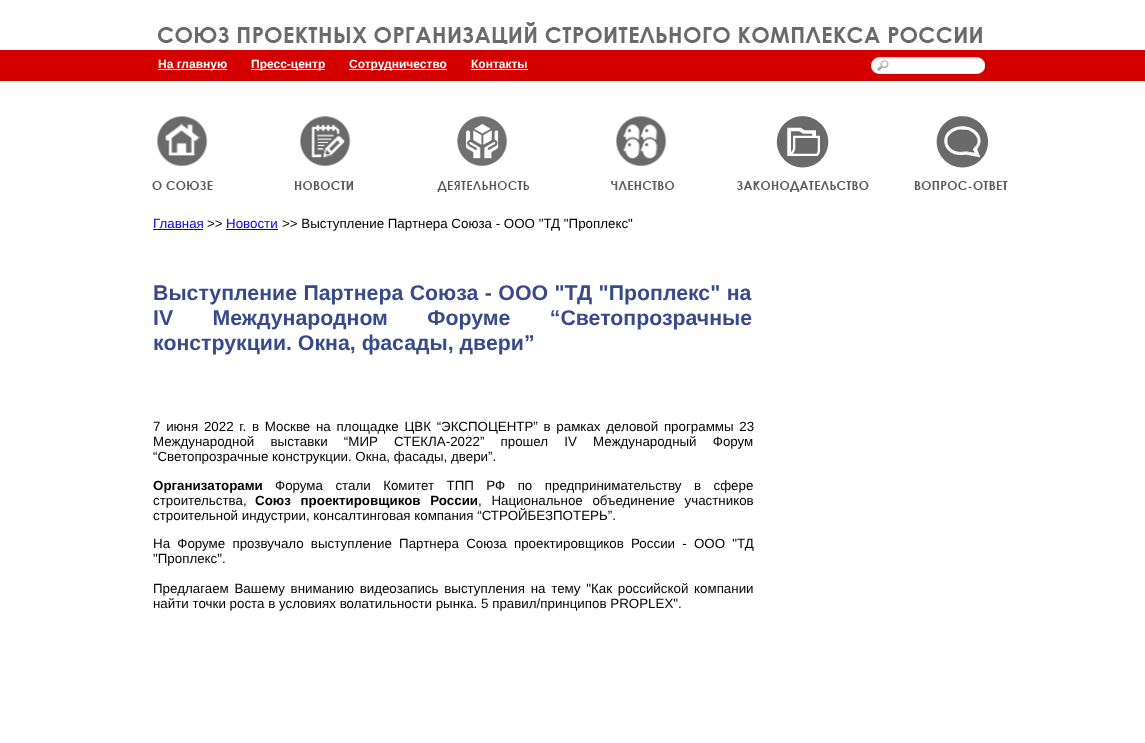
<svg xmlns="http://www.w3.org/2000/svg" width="1145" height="743">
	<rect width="100%" height="100%" fill="#FFFFFF" />
	<rect x="0" y="50" width="1145" height="31" fill="#D40000" />
	<image x="158" y="22" width="824" height="22" href="assets/img1.png" />
	<rect x="158" y="69" width="69" height="1" fill="#FFFFFF" />
	<text x="158" y="68" font-family="Liberation Sans" font-size="12" font-weight="700" fill="#FFFFFF">На главную</text>
	<rect x="251" y="69" width="74" height="1" fill="#FFFFFF" />
	<text x="251" y="68" font-family="Liberation Sans" font-size="12" font-weight="700" fill="#FFFFFF">Пресс-центр</text>
	<rect x="349" y="69" width="98" height="1" fill="#FFFFFF" />
	<g font-family="Liberation Sans" font-size="12" font-weight="700" fill="#FFFFFF">
		<text x="349" y="68">Сотрудничество</text>
		<text x="471" y="68">Контакты</text>
	</g>
	<rect x="471" y="69" width="57" height="1" fill="#FFFFFF" />
	<image x="871" y="57" width="114" height="17" href="assets/img2.png" />
	<image x="152" y="116" width="61" height="74" href="assets/img3.png" />
	<image x="294" y="116" width="60" height="74" href="assets/img4.png" />
	<image x="437" y="116" width="93" height="76" href="assets/img5.png" />
	<image x="611" y="116" width="64" height="74" href="assets/img6.png" />
	<image x="737" y="116" width="132" height="76" href="assets/img7.png" />
	<image x="914" y="116" width="94" height="74" href="assets/img8.png" />
	<text x="153" y="228" font-family="Liberation Sans" font-size="13.35" fill="#0000EE">Главная</text>
	<rect x="153" y="229" width="50" height="1" fill="#0000EE" />
	<text x="207" y="228" font-family="Liberation Sans" font-size="13.35" fill="#000000">&gt;&gt;</text>
	<text x="226" y="228" font-family="Liberation Sans" font-size="13.35" fill="#0000EE">Новости</text>
	<rect x="226" y="229" width="52" height="1" fill="#0000EE" />
	<text x="282" y="228" font-family="Liberation Sans" font-size="13.35" fill="#000000">&gt;&gt; Выступление Партнера Союза - ООО "ТД "Проплекс"</text>
	<g font-family="Liberation Sans" font-size="21.3" font-weight="700" fill="#374B8A">
		<text x="153" y="300" word-spacing="0.5">Выступление Партнера Союза - ООО "ТД "Проплекс" на</text>
		<text x="153" y="325" word-spacing="33.5">IV Международном Форуме “Светопрозрачные</text>
		<text x="153" y="350">конструкции. Окна, фасады, двери”</text>
	</g>
	<g font-family="Liberation Sans" font-size="13.35" fill="#000000">
		<text x="153" y="431" word-spacing="2">7 июня 2022 г. в Москве на площадке ЦВК “ЭКСПОЦЕНТР” в рамках деловой программы 23</text>
		<text x="153" y="446" word-spacing="12.5">Международной выставки “МИР СТЕКЛА-2022” прошел IV Международный Форум</text>
		<text x="153" y="461">“Светопрозрачные конструкции. Окна, фасады, двери”.</text>
	</g>
	<text x="153" y="490" font-family="Liberation Sans" font-size="13.35" font-weight="700" fill="#000000">Организаторами</text>
	<g font-family="Liberation Sans" font-size="13.35" fill="#000000">
		<text x="275" y="490" word-spacing="8.75">Форума стали Комитет ТПП РФ по предпринимательству в сфере</text>
		<text x="153" y="505">строительства,</text>
	</g>
	<text x="255" y="505" word-spacing="6" font-family="Liberation Sans" font-size="13.35" font-weight="700" fill="#000000">Союз проектировщиков России</text>
	<g font-family="Liberation Sans" font-size="13.35" fill="#000000">
		<text x="478" y="505" word-spacing="6">, Национальное объединение участников</text>
		<text x="153" y="520">строительной индустрии, консалтинговая компания “СТРОЙБЕЗПОТЕРЬ”.</text>
		<text x="153" y="548" word-spacing="3.5">На Форуме прозвучало выступление Партнера Союза проектировщиков России - ООО "ТД</text>
		<text x="153" y="563">"Проплекс".</text>
		<text x="153" y="593" word-spacing="2">Предлагаем Вашему вниманию видеозапись выступления на тему "Как российской компании</text>
		<text x="153" y="608">найти точки роста в условиях волатильности рынка. 5 правил/принципов PROPLEX".</text>
	</g>
</svg>
